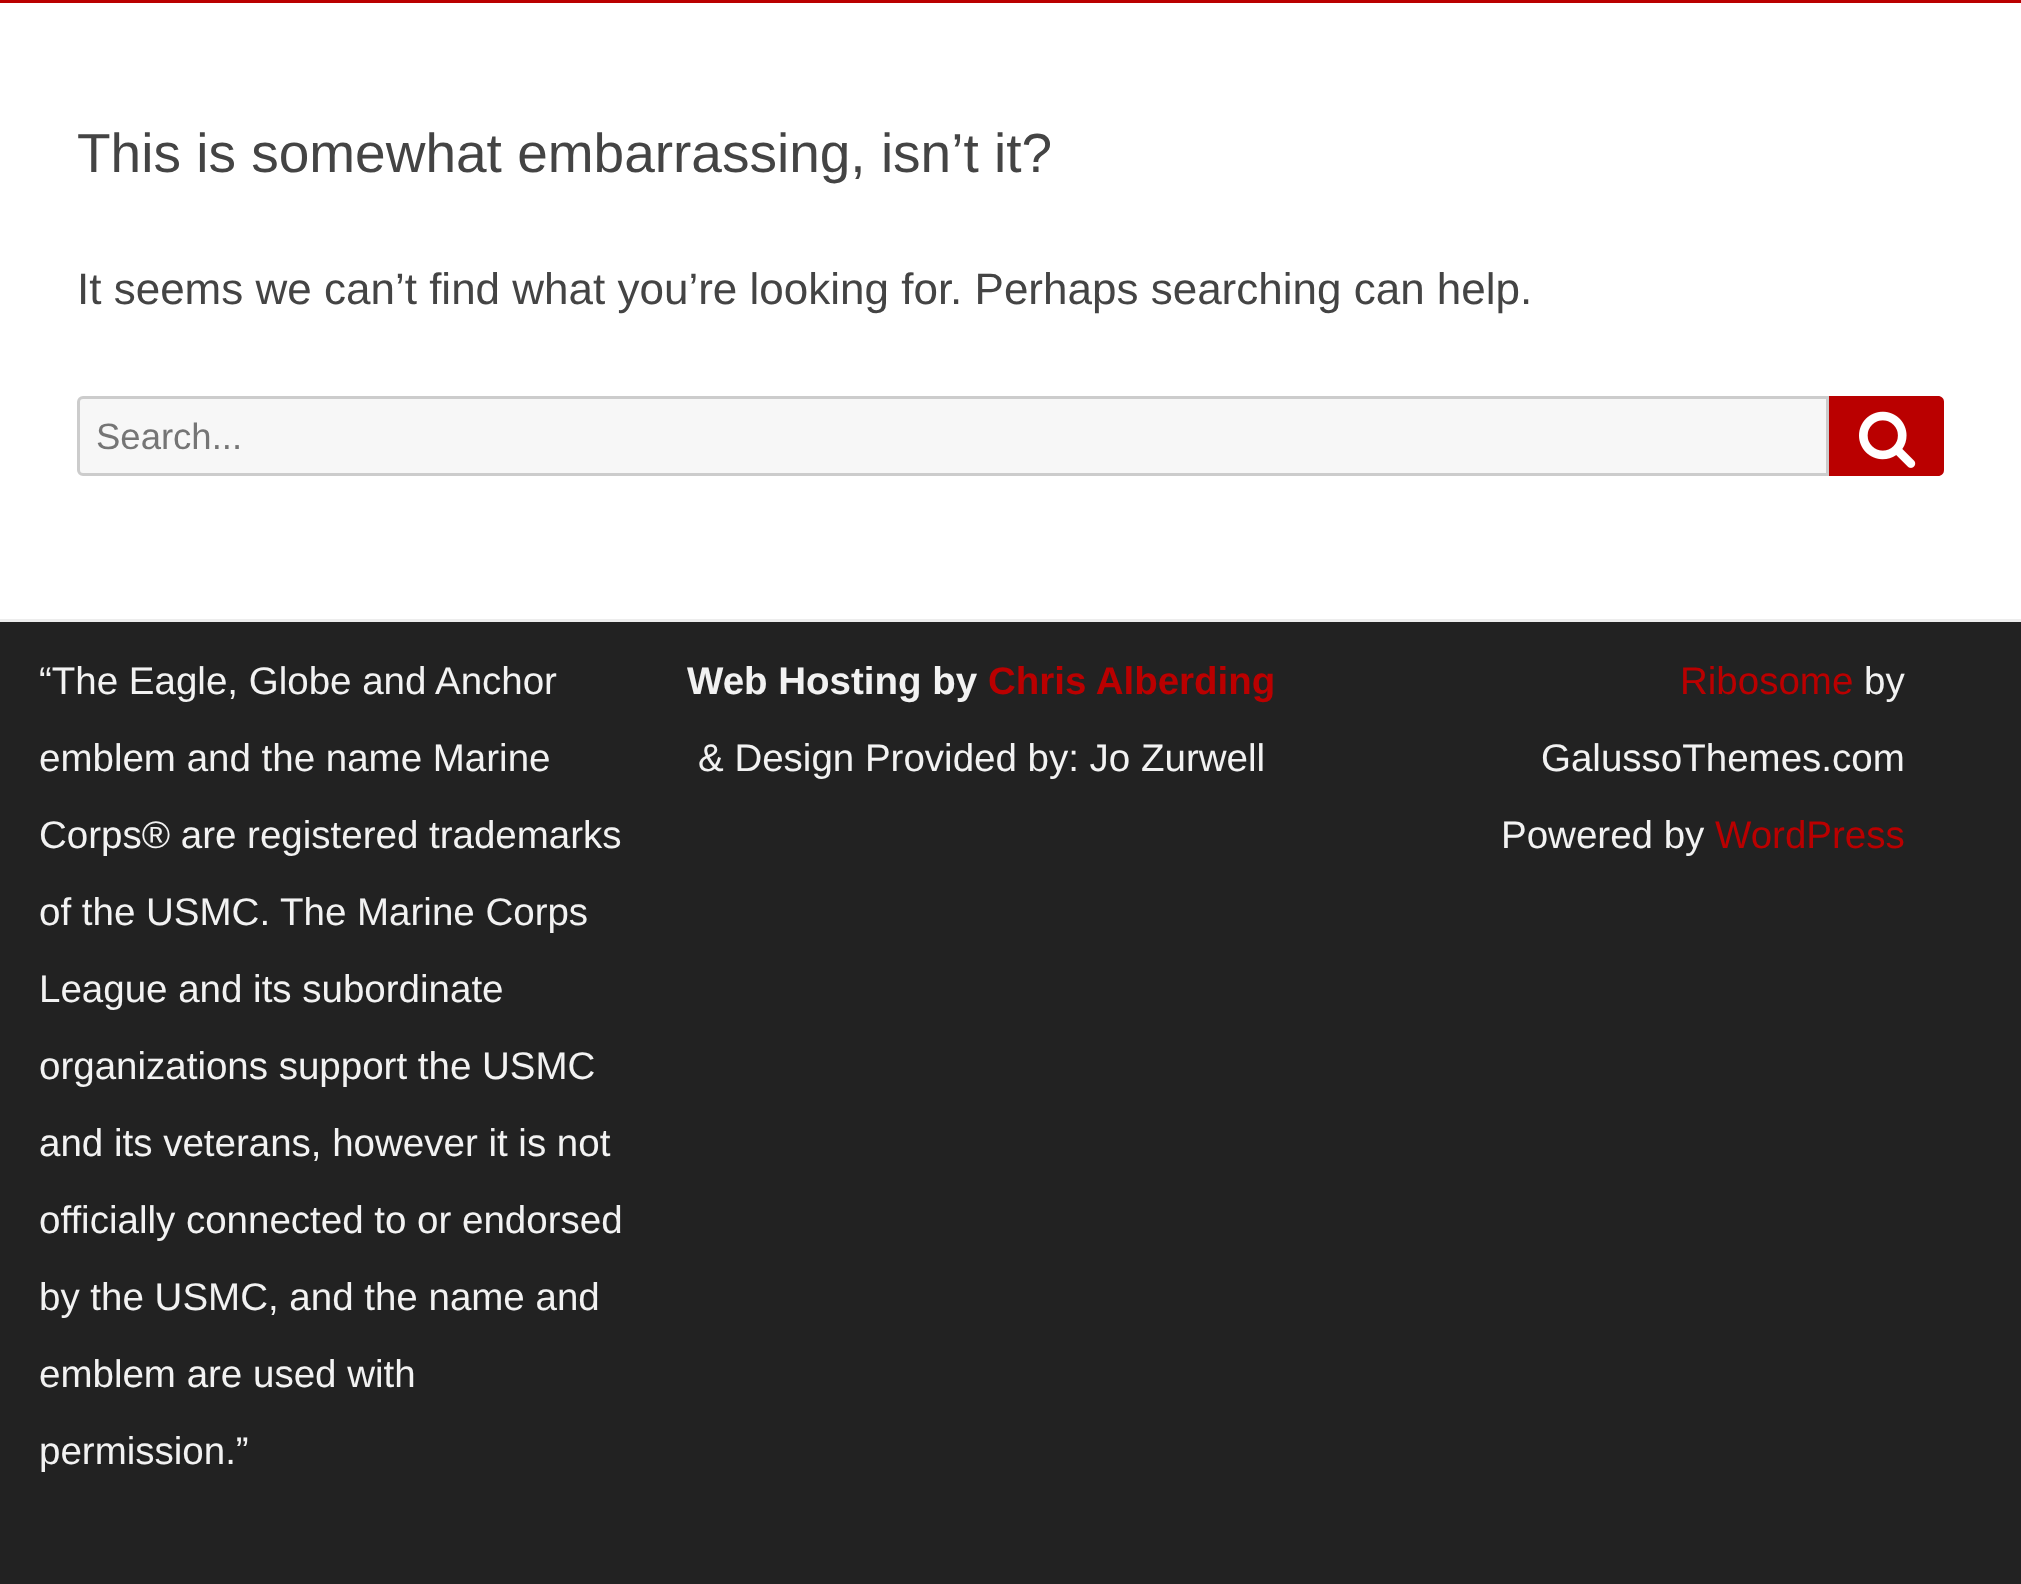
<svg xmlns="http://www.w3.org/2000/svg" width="2021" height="1584">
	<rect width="100%" height="100%" fill="#FFFFFF" />
	<rect x="0" y="0" width="2021" height="3" fill="#BA0000" />
	<text x="77" y="172" font-family="Arimo" font-size="55" fill="#444444">This is somewhat embarrassing, isn’t it?</text>
	<text x="77" y="304" font-family="Arimo" font-size="44" fill="#444444">It seems we can’t find what you’re looking for. Perhaps searching can help.</text>
	<path d="M83 397.5H1827.5V474.5H83C80.5 474.5 78.5 472.5 78.5 470V402C78.5 399.5 80.5 397.5 83 397.5Z" fill="#F7F7F7" stroke="#CCCCCC" stroke-width="3" />
	<text x="96" y="449" font-family="Arimo" font-size="36.5" fill="#757575">Search...</text>
	<path d="M1829 396H1938C1941.5 396 1944 398.5 1944 402V470C1944 473.5 1941.5 476 1938 476H1829Z" fill="#BA0000" />
	<image x="1859" y="411" width="57" height="57" href="assets/img1.png" />
	<rect x="0" y="622" width="2021" height="962" fill="#222222" />
	<rect x="0" y="619" width="2021" height="3" fill="#EDEDED" />
	<g font-family="Arimo" font-size="38.5" fill="#F2F2F2">
		<text x="39" y="694">“The Eagle, Globe and Anchor</text>
		<text x="39" y="771">emblem and the name Marine</text>
		<text x="39" y="848">Corps® are registered trademarks</text>
		<text x="39" y="925">of the USMC.</text>
		<text x="280" y="925">The Marine Corps</text>
		<text x="39" y="1002">League and its subordinate</text>
		<text x="39" y="1079">organizations support the USMC</text>
		<text x="39" y="1156">and its veterans, however it is not</text>
		<text x="39" y="1233">officially connected to or endorsed</text>
		<text x="39" y="1310">by the USMC, and the name and</text>
		<text x="39" y="1387">emblem are used with</text>
		<text x="39" y="1464">permission.”</text>
	</g>
	<text x="687" y="694" font-family="Arimo" font-size="38.5" font-weight="700" fill="#F2F2F2">Web Hosting by</text>
	<text x="988" y="694" font-family="Arimo" font-size="38.5" font-weight="700" fill="#BA0000">Chris Alberding</text>
	<text x="698" y="771" font-family="Arimo" font-size="38.5" fill="#F2F2F2">&amp; Design Provided by: Jo Zurwell</text>
	<text x="1680" y="694" font-family="Arimo" font-size="38.5" fill="#BA0000">Ribosome</text>
	<g font-family="Arimo" font-size="38.5" fill="#F2F2F2">
		<text x="1864" y="694">by</text>
		<text x="1541" y="771">GalussoThemes.com</text>
		<text x="1501" y="848">Powered by</text>
	</g>
	<text x="1715" y="848" font-family="Arimo" font-size="38.5" fill="#BA0000">WordPress</text>
</svg>
